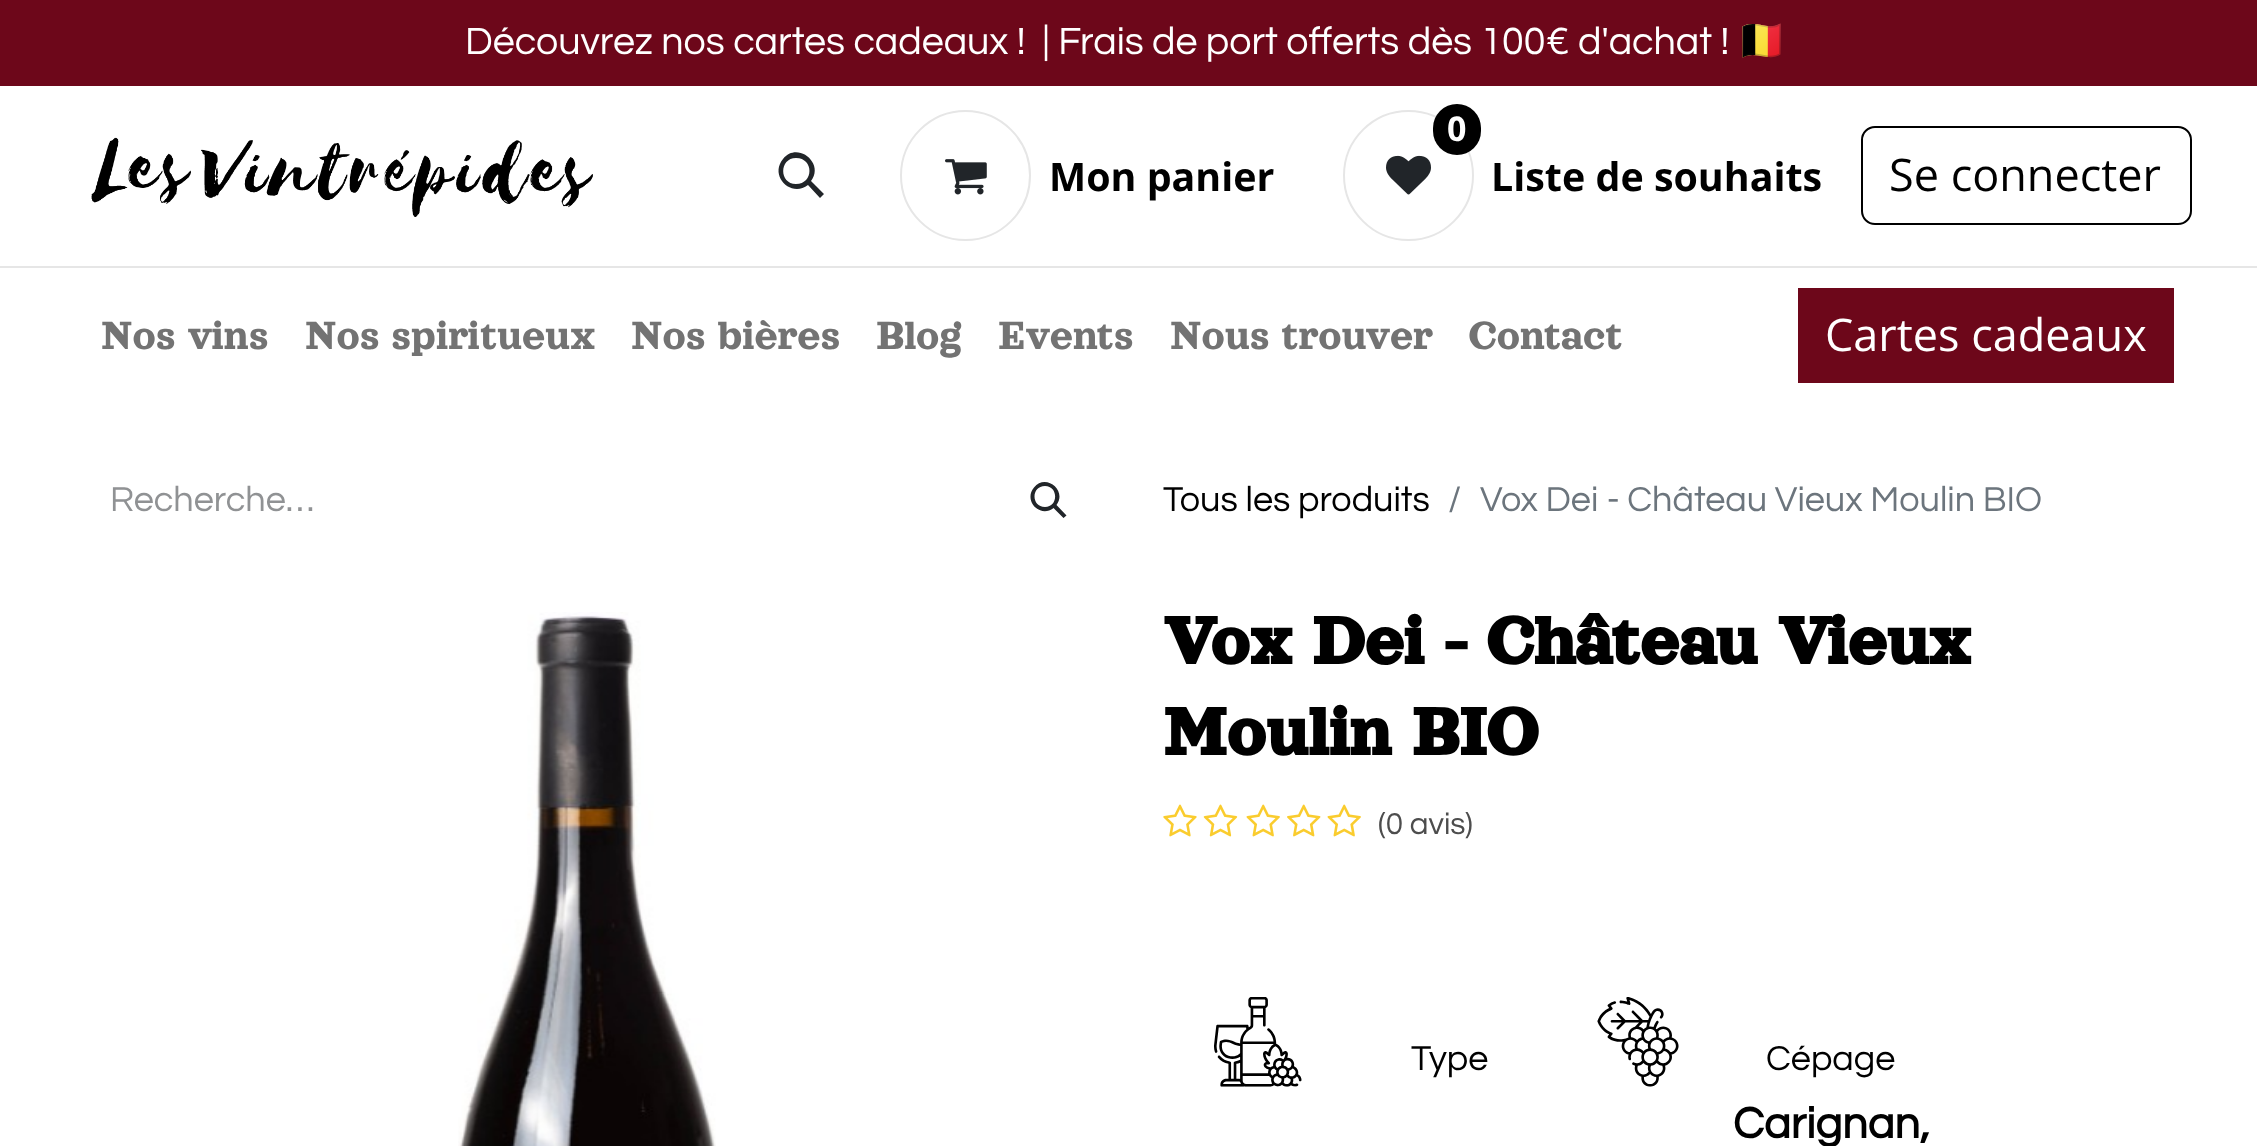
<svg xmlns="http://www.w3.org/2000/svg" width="2257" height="1146">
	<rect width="100%" height="100%" fill="#FFFFFF" />
	<rect x="0" y="0" width="2257" height="86" fill="#6D071A" />
	<text x="465" y="54" font-family="Questrial" font-size="39.4" fill="#FFFFFF" xml:space="preserve">Découvrez nos cartes cadeaux !  | Frais de port offerts dès 100€ d'achat !</text>
	<text x="1737" y="54" font-family="Noto Color Emoji" font-size="39.4" fill="#FFFFFF">🇧🇪</text>
	<image x="91" y="137" width="502" height="80" href="assets/img1.png" />
	<path d="M783 159C797 141 825 163 811 181L824 194L820 198L808 185C791 198 769 176 783 159ZM796 158C779 158 779 184 796 184C814 184 814 158 796 158Z" fill="#212529" />
	<circle cx="965.5" cy="175.5" r="64.5" fill="none" stroke="#E6E6E6" stroke-width="2" />
	<image x="945" y="159" width="42" height="36" href="assets/img2.png" />
	<text x="1049" y="191" font-family="Open Sans" font-size="39.4" font-weight="700" fill="#000000">Mon panier</text>
	<circle cx="1408.5" cy="175.5" r="64.5" fill="none" stroke="#E6E6E6" stroke-width="2" />
	<rect x="1433" y="104" width="48" height="51" rx="24" fill="#000000" />
	<text x="1447" y="141" font-family="Open Sans" font-size="34" font-weight="700" fill="#FFFFFF">0</text>
	<image x="1386" y="155" width="45" height="40" href="assets/img3.png" />
	<text x="1491" y="191" font-family="Open Sans" font-size="39.4" font-weight="700" fill="#000000">Liste de souhaits</text>
	<rect x="1862" y="127" width="329" height="97" rx="13" fill="none" stroke="#000000" stroke-width="2" />
	<text x="1889" y="191" font-family="Open Sans" font-size="45" fill="#000000">Se connecter</text>
	<rect x="0" y="266" width="2257" height="2" fill="#E6E6E6" />
	<g font-family="Orelega One" font-size="45" fill="#737373">
		<text x="101" y="349">Nos vins</text>
		<text x="305" y="349">Nos spiritueux</text>
		<text x="631" y="349">Nos bières</text>
		<text x="876" y="349">Blog</text>
		<text x="998" y="349">Events</text>
		<text x="1170" y="349">Nous trouver</text>
		<text x="1469" y="349">Contact</text>
	</g>
	<rect x="1798" y="288" width="376" height="95" fill="#6D071A" />
	<text x="1825" y="351" font-family="Open Sans" font-size="45" fill="#FFFFFF">Cartes cadeaux</text>
	<text x="110" y="511" font-family="Questrial" font-size="36" fill="#909294">Recherche…</text>
	<path d="M1034 487.5C1045.5 473 1067.5 490.5 1056.5 505L1066.5 515.5L1063.5 518L1053.5 508C1040 518.5 1023 500.5 1034 487.5ZM1045 486C1031 486 1031 507 1045 507C1058.5 507 1058.5 486 1045 486Z" fill="#212529" />
	<text x="1163" y="511" font-family="Questrial" font-size="36" fill="#000000">Tous les produits</text>
	<g font-family="Questrial" font-size="36" fill="#6C757D">
		<text x="1448" y="511">/</text>
		<text x="1480" y="511">Vox Dei - Château Vieux Moulin BIO</text>
	</g>
	<image x="458" y="612" width="258" height="534" href="assets/img4.png" />
	<g font-family="Orelega One" font-size="75.75" font-weight="700" fill="#000000">
		<text x="1163" y="664">Vox Dei - Château Vieux</text>
		<text x="1163" y="755">Moulin BIO</text>
	</g>
	<image x="1163" y="804" width="34" height="33" href="assets/img5.png" />
	<image x="1203" y="804" width="35" height="33" href="assets/img6.png" />
	<image x="1246" y="804" width="34" height="33" href="assets/img7.png" />
	<image x="1287" y="804" width="34" height="33" href="assets/img8.png" />
	<image x="1327" y="804" width="34" height="33" href="assets/img7.png" />
	<text x="1378" y="834" font-family="Questrial" font-size="31.5" fill="#4D4D4D">(0 avis)</text>
	<image x="1214" y="997" width="88" height="90" href="assets/img9.png" />
	<text x="1411" y="1070" font-family="Questrial" font-size="36" fill="#000000">Type</text>
	<image x="1597" y="997" width="82" height="90" href="assets/img10.png" />
	<text x="1766" y="1070" font-family="Questrial" font-size="36" fill="#000000">Cépage</text>
	<text x="1733" y="1138" font-family="Questrial" font-size="45" font-weight="700" fill="#000000">Carignan,</text>
</svg>
